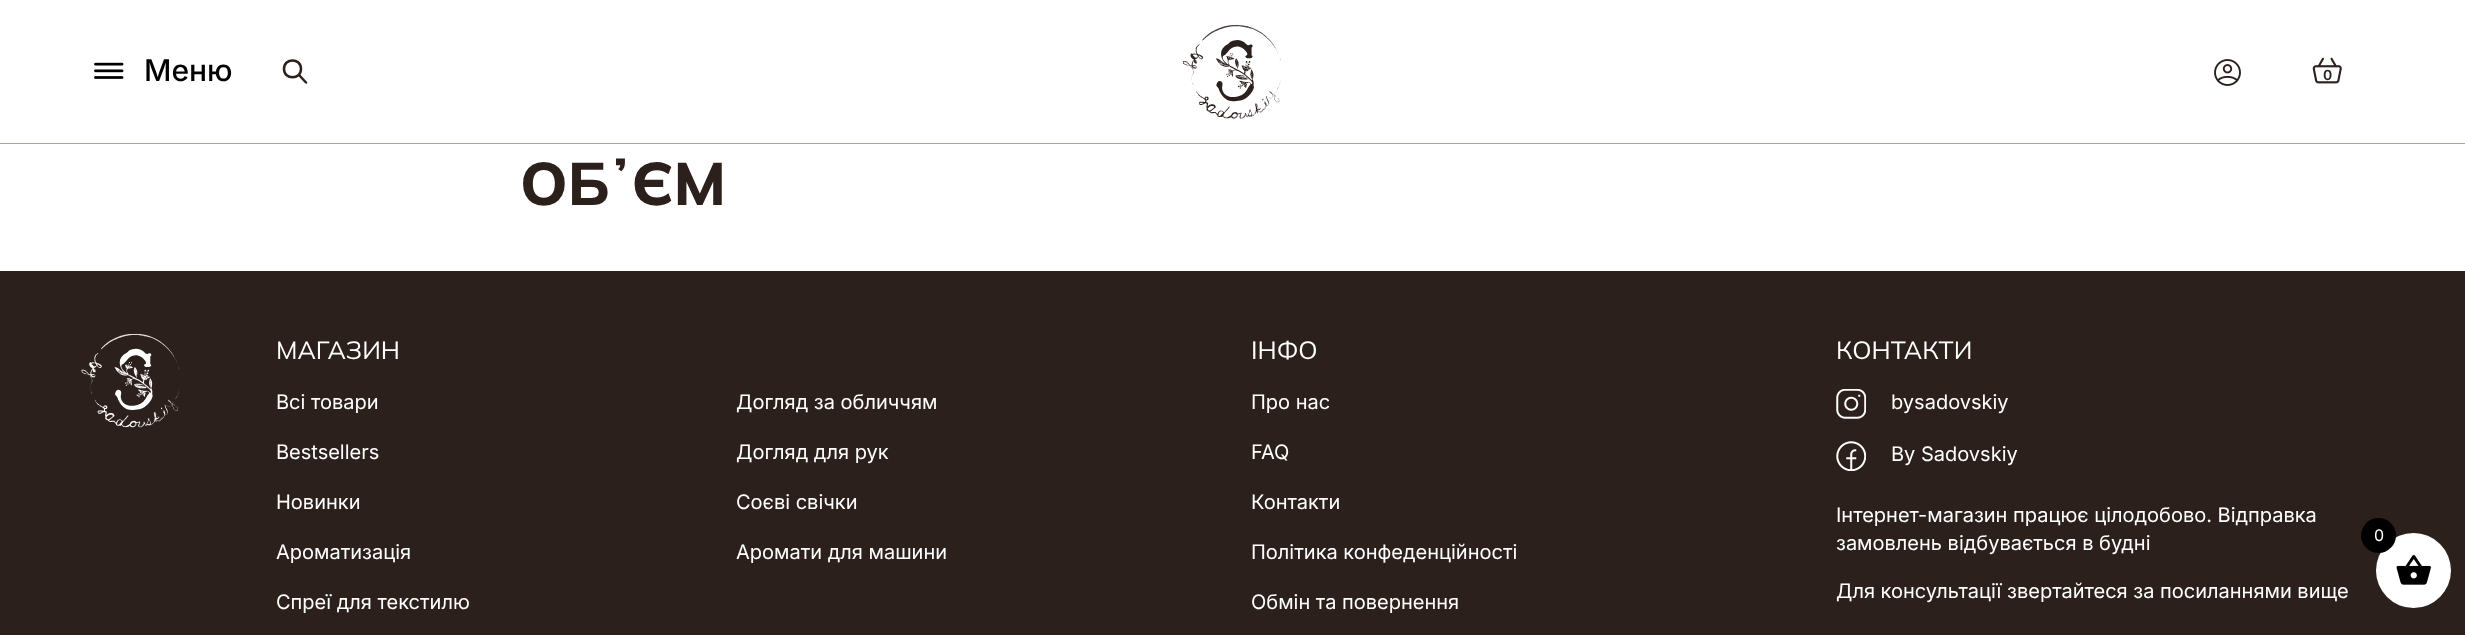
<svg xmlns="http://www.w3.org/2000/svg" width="2465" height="635">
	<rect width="100%" height="100%" fill="#FFFFFF" />
	<rect x="0" y="143" width="2465" height="1" fill="#ABA19D" />
	<image x="94" y="62" width="30" height="17" href="assets/img1.png" />
	<text x="144" y="81" font-family="Inter" font-size="30" font-weight="500" fill="#000000">Меню</text>
	<path d="M306 82.5L299 75M284 69C284 80 301 80 301 69C301 57.5 284 57.5 284 69Z" fill="none" stroke="#2C201D" stroke-width="2.5" stroke-linecap="round" stroke-linejoin="round" />
	<image x="1183" y="25" width="98" height="94" href="assets/img2.png" />
	<image x="2214" y="59" width="27" height="27" href="assets/img3.png" />
	<image x="2312" y="57" width="30" height="27" href="assets/img4.png" />
	<text x="2323" y="80" font-family="Inter" font-size="14" font-weight="600" fill="#2C201D">0</text>
	<text x="520" y="205" font-family="Mulish" font-size="60" font-weight="800" fill="#2C201D">ОБʼЄМ</text>
	<rect x="0" y="271" width="2465" height="364" fill="#2C201D" />
	<image x="81" y="334" width="99" height="94" href="assets/img5.png" />
	<text x="276" y="359" font-family="Mulish" font-size="25" fill="#FFFFFF">МАГАЗИН</text>
	<g font-family="Inter" font-size="20" fill="#FFFFFF">
		<text x="276" y="409">Всі товари</text>
		<text x="736" y="409">Догляд за обличчям</text>
		<text x="276" y="459">Bestsellers</text>
		<text x="736" y="459">Догляд для рук</text>
		<text x="276" y="509">Новинки</text>
		<text x="736" y="509">Соєві свічки</text>
		<text x="276" y="559">Ароматизація</text>
		<text x="736" y="559">Аромати для машини</text>
		<text x="276" y="609">Спреї для текстилю</text>
	</g>
	<text x="1251" y="359" font-family="Mulish" font-size="25" fill="#FFFFFF">ІНФО</text>
	<g font-family="Inter" font-size="20" fill="#FFFFFF">
		<text x="1251" y="409">Про нас</text>
		<text x="1251" y="459">FAQ</text>
		<text x="1251" y="509">Контакти</text>
		<text x="1251" y="559">Політика конфеденційності</text>
		<text x="1251" y="609">Обмін та повернення</text>
	</g>
	<text x="1836" y="359" font-family="Mulish" font-size="25" fill="#FFFFFF">КОНТАКТИ</text>
	<image x="1836" y="389" width="30" height="30" href="assets/img6.png" />
	<text x="1891" y="409" font-family="Inter" font-size="20" fill="#FFFFFF">bysadovskiy</text>
	<image x="1836" y="441" width="30" height="30" href="assets/img7.png" />
	<g font-family="Inter" font-size="20" fill="#FFFFFF">
		<text x="1891" y="461">By Sadovskiy</text>
		<text x="1836" y="522">Інтернет-магазин працює цілодобово. Відправка</text>
		<text x="1836" y="550">замовлень відбувається в будні</text>
		<text x="1836" y="598">Для консультації звертайтеся за посиланнями вище</text>
	</g>
	<circle cx="2413.5" cy="570.5" r="37.5" fill="#FFFFFF" />
	<circle cx="2378.5" cy="535.5" r="17.5" fill="#000000" />
	<text x="2374" y="541" font-family="Inter" font-size="16" fill="#FFFFFF">0</text>
	<image x="2396" y="555" width="35" height="30" href="assets/img8.png" />
</svg>
